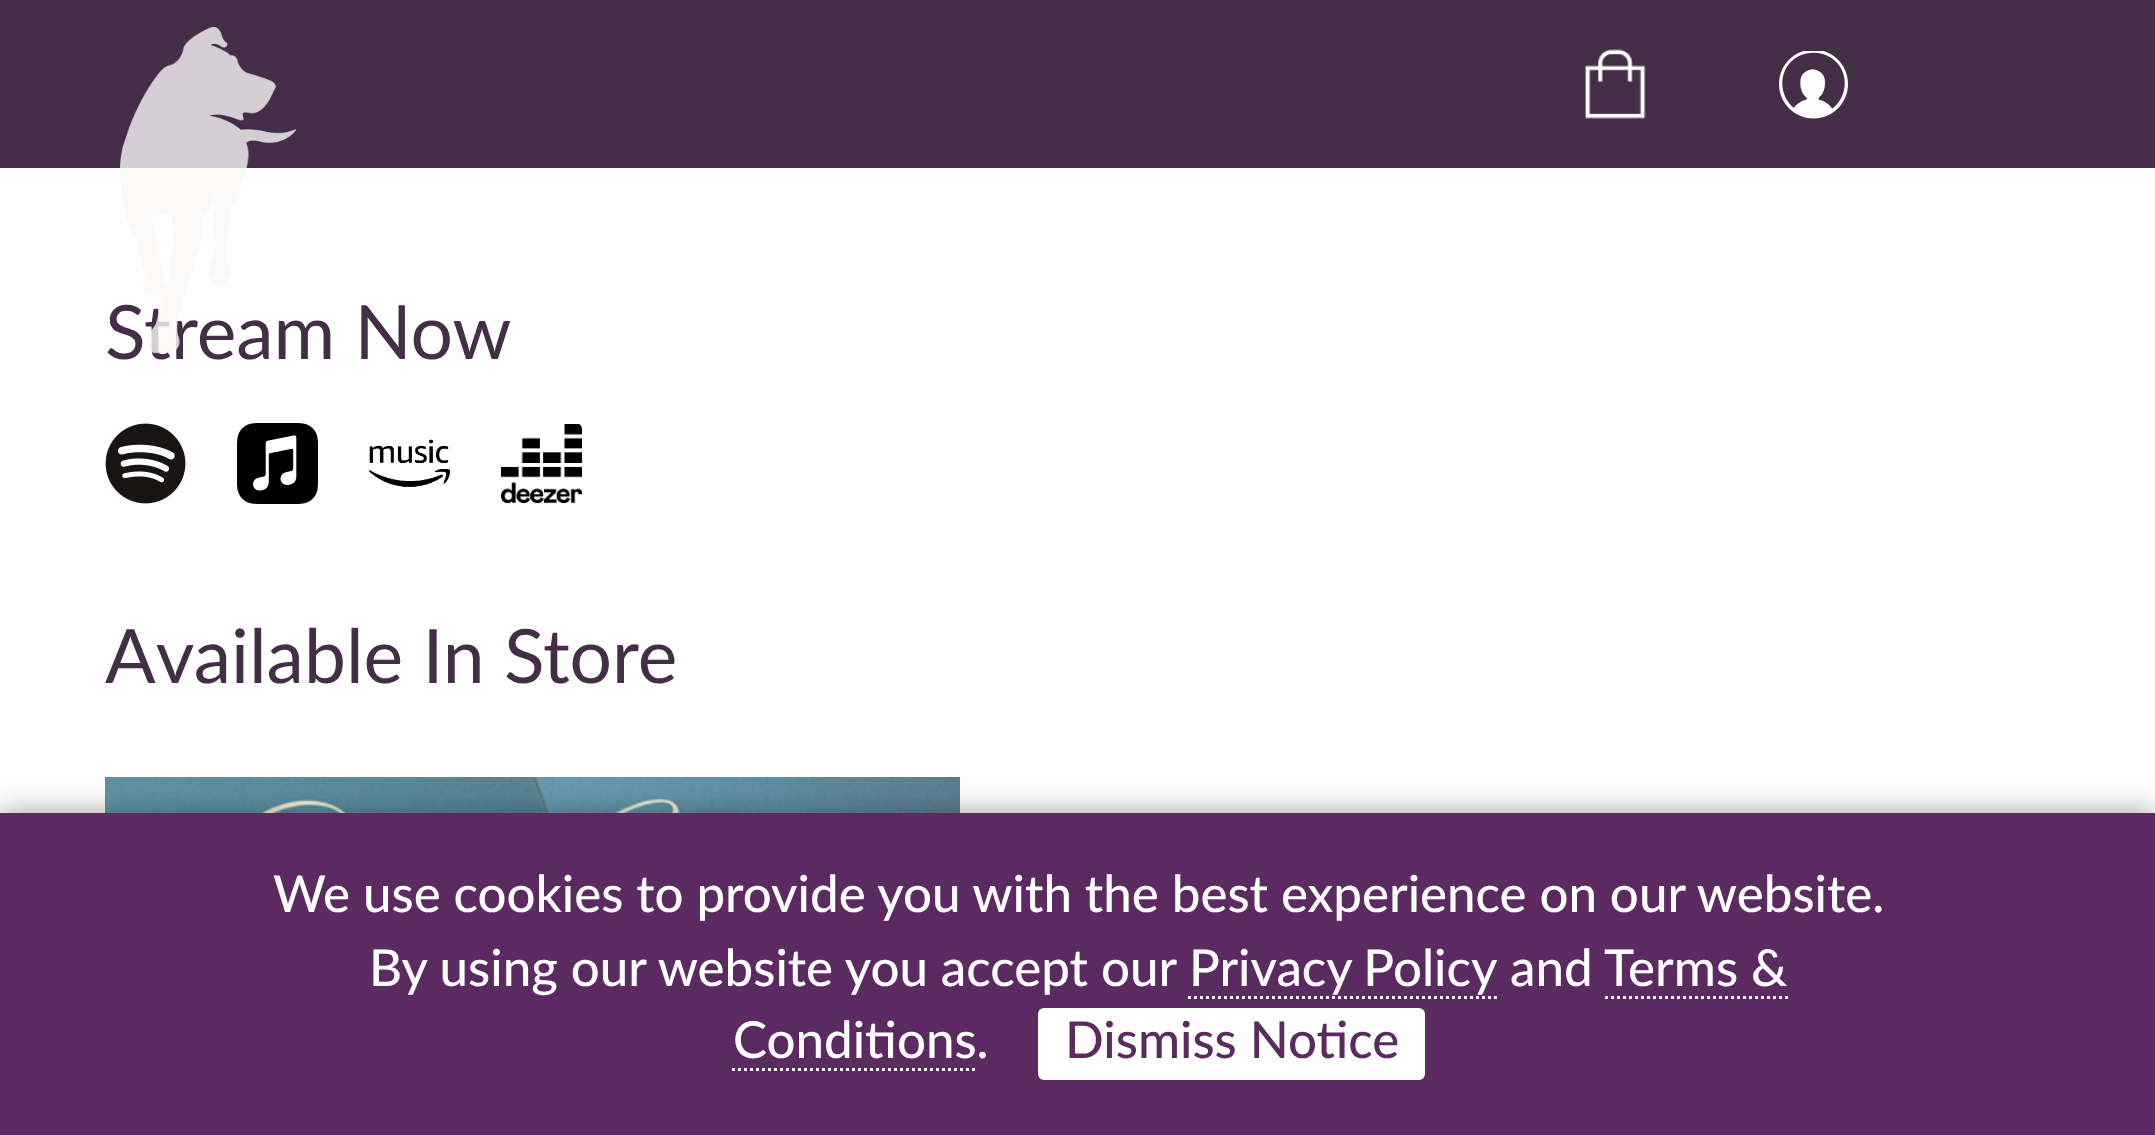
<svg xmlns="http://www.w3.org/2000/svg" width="2155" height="1135">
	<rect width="100%" height="100%" fill="#FFFFFF" />
	<rect x="0" y="0" width="2155" height="168" fill="#442D47" />
	<text x="105" y="359" font-family="Lato" font-size="75" fill="#442D47">Stream Now</text>
	<image x="120" y="27" width="177" height="327" href="assets/img1.png" />
	<image x="1585" y="49" width="61" height="70" href="assets/img2.png" />
	<image x="1779" y="51" width="69" height="68" href="assets/img3.png" />
	<image x="105" y="423" width="81" height="81" href="assets/img4.png" />
	<image x="237" y="423" width="81" height="81" href="assets/img5.png" />
	<image x="369" y="439" width="81" height="48" href="assets/img6.png" />
	<image x="501" y="424" width="81" height="80" href="assets/img7.png" />
	<text x="105" y="683" font-family="Lato" font-size="75" fill="#442D47">Available In Store</text>
	<image x="105" y="777" width="855" height="36" href="assets/img8.png" />
	<rect x="0" y="813" width="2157" height="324" fill="#000000" fill-opacity="0.4" filter="blur(15px)" />
	<rect x="0" y="813" width="2155" height="322" fill="#5B2A61" />
	<g font-family="Lato" font-size="51" font-weight="500" fill="#FFFFFF">
		<text x="273" y="912">We use cookies to provide you with the best experience on our website.</text>
		<text x="369" y="986">By using our website you accept our</text>
		<text x="1189" y="986" word-spacing="-1">Privacy Policy</text>
	</g>
	<path d="M1188 997.5H1497" fill="none" stroke="#FFFFFF" stroke-width="3" stroke-dasharray="3 3" />
	<g font-family="Lato" font-size="51" font-weight="500" fill="#FFFFFF">
		<text x="1510" y="986">and</text>
		<text x="1604" y="986">Terms &amp;</text>
	</g>
	<path d="M1605 997.5H1788" fill="none" stroke="#FFFFFF" stroke-width="3" stroke-dasharray="3 3" />
	<text x="733" y="1058" font-family="Lato" font-size="51" font-weight="500" fill="#FFFFFF">Conditions.</text>
	<path d="M732 1069.5H975" fill="none" stroke="#FFFFFF" stroke-width="3" stroke-dasharray="3 3" />
	<rect x="1038" y="1008" width="387" height="72" rx="6" fill="#FFFFFF" />
	<text x="1065" y="1058" font-family="Lato" font-size="51" font-weight="500" fill="#5B2A61">Dismiss Notice</text>
</svg>
